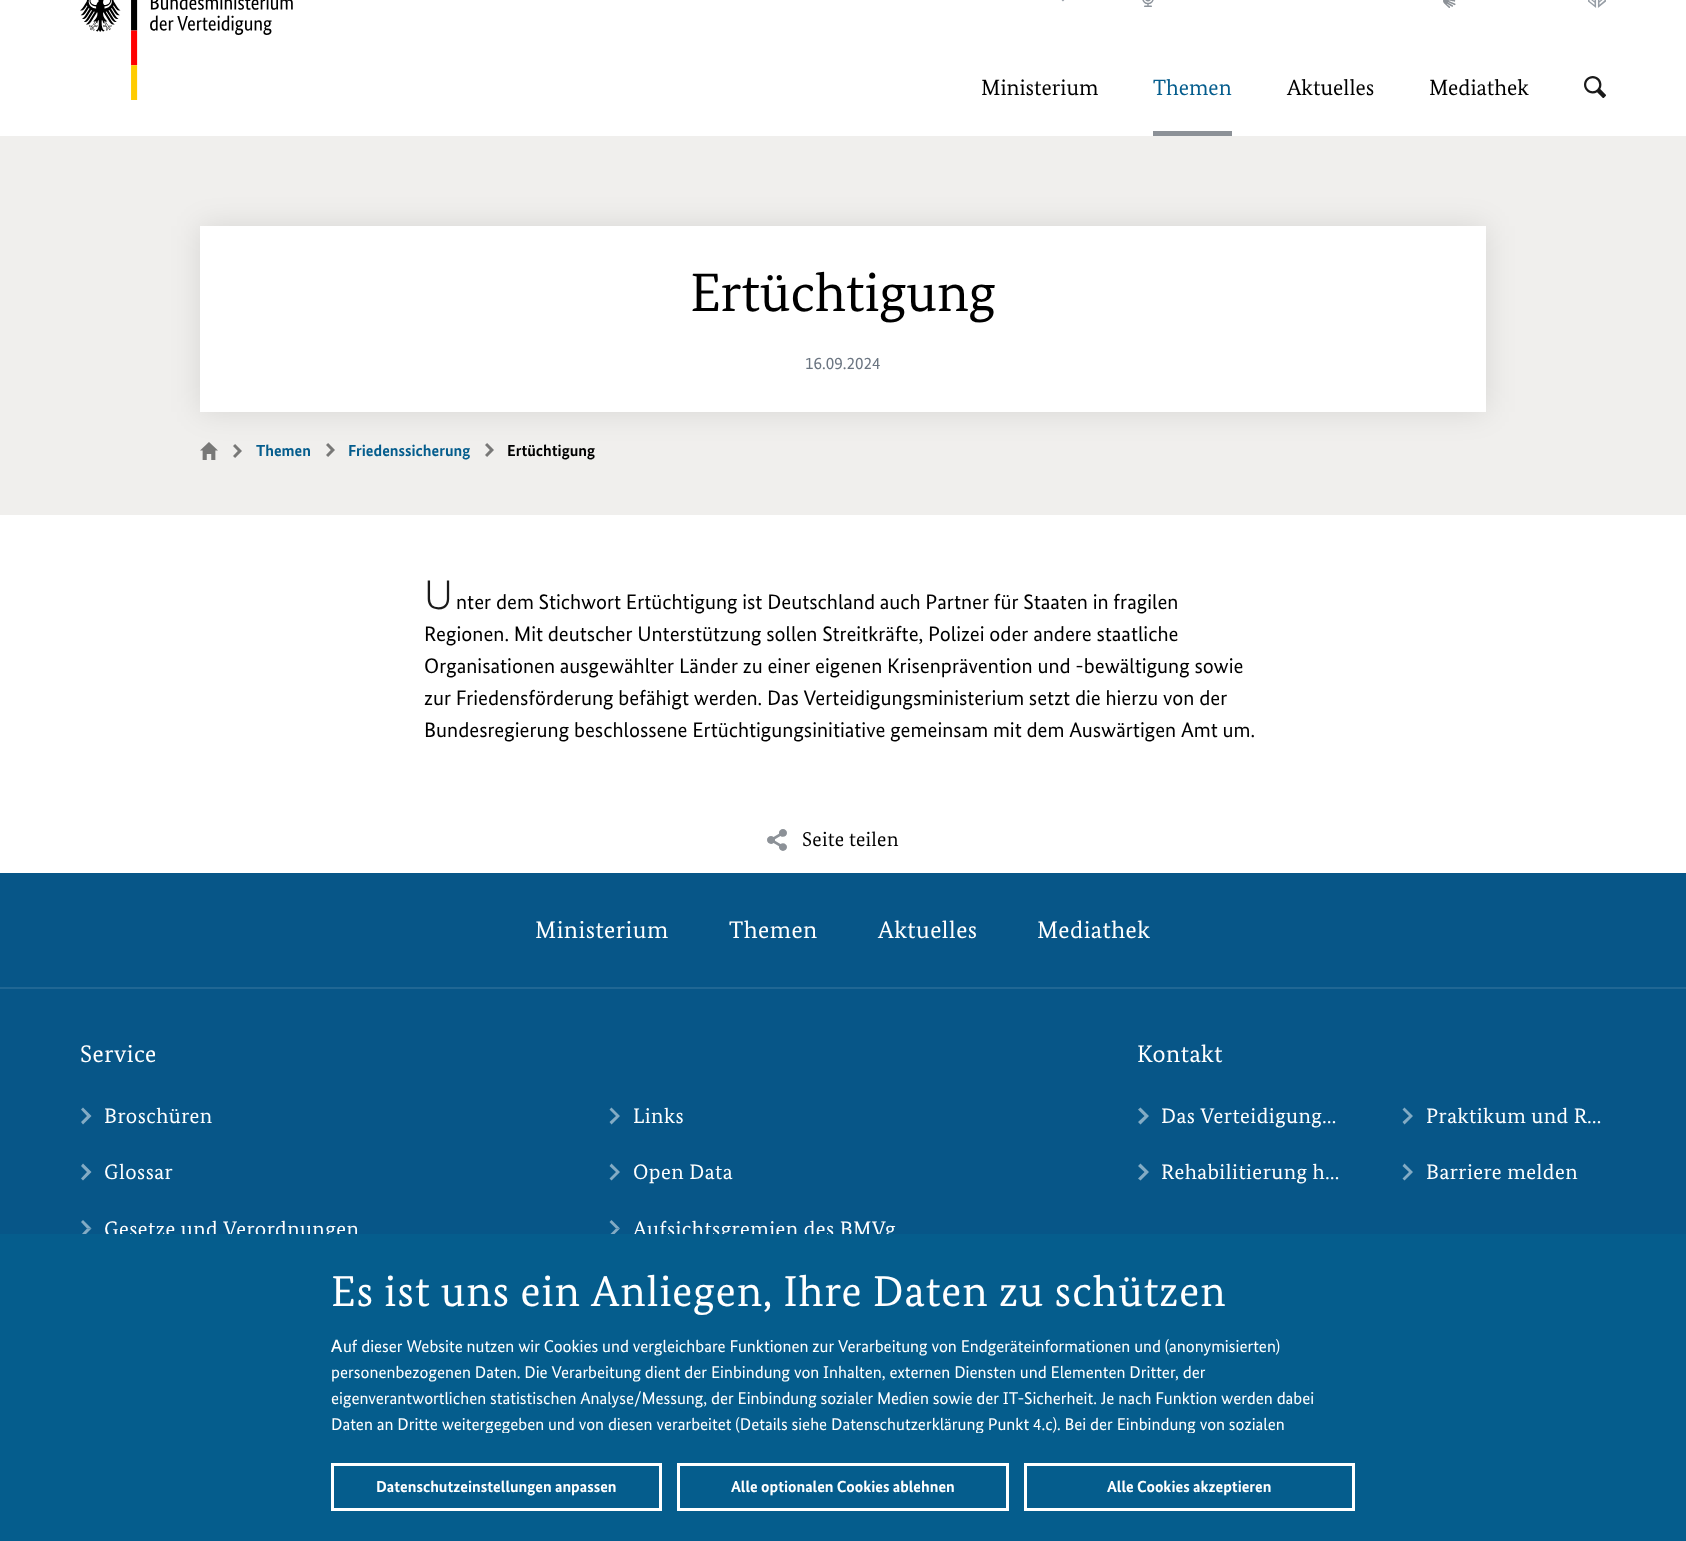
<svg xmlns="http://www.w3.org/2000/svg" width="1686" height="1541">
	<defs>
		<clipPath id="clip1"><rect x="331" y="1333" width="1024" height="100" /></clipPath>
	</defs>
	<rect width="100%" height="100%" fill="#FFFFFF" />
	<image x="80" y="0" width="213" height="100" href="assets/img1.png" />
	<image x="1061" y="0" width="4" height="2" href="assets/img2.png" />
	<image x="1142" y="0" width="12" height="7" href="assets/img3.png" />
	<image x="1443" y="0" width="13" height="8" href="assets/img4.png" />
	<image x="1588" y="0" width="18" height="8" href="assets/img5.png" />
	<text x="981" y="95" font-family="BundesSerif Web" font-size="22" fill="#000000">Ministerium</text>
	<text x="1153" y="95" font-family="BundesSerif Web" font-size="22" fill="#055D8D">Themen</text>
	<rect x="1153" y="131" width="79" height="5" fill="#8C9197" />
	<g font-family="BundesSerif Web" font-size="22" fill="#000000">
		<text x="1287" y="95">Aktuelles</text>
		<text x="1429" y="95">Mediathek</text>
	</g>
	<image x="1584" y="76" width="22" height="22" href="assets/img6.png" />
	<rect x="0" y="136" width="1686" height="379" fill="#F0EFED" />
	<rect x="200" y="226" width="1286" height="186" fill="#000000" fill-opacity="0.1" filter="blur(15px)" />
	<rect x="200" y="226" width="1286" height="186" fill="#FFFFFF" />
	<text x="690" y="311" font-family="BundesSerif Web" font-size="54" fill="#000000">Ertüchtigung</text>
	<text x="805" y="369" font-family="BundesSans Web" font-size="17" fill="#6B7581">16.09.2024</text>
	<image x="200" y="442" width="18" height="18" href="assets/img7.png" />
	<image x="233" y="444" width="9" height="14" href="assets/img8.png" />
	<text x="256" y="456" font-family="BundesSans Web" font-size="16" font-weight="700" fill="#055D8D">Themen</text>
	<image x="326" y="443" width="9" height="14" href="assets/img9.png" />
	<text x="348" y="456" font-family="BundesSans Web" font-size="16" font-weight="700" fill="#055D8D">Friedenssicherung</text>
	<image x="485" y="443" width="9" height="14" href="assets/img9.png" />
	<text x="507" y="456" font-family="BundesSans Web" font-size="16" font-weight="700" fill="#000000">Ertüchtigung</text>
	<text x="424" y="609" font-family="Noto Sans" font-size="40" font-weight="300" letter-spacing="3" fill="#1A1A1A">U</text>
	<g font-family="BundesSans Web" font-size="21" fill="#000000">
		<text x="456" y="609">nter dem Stichwort Ertüchtigung ist Deutschland auch Partner für Staaten in fragilen</text>
		<text x="424" y="641">Regionen. Mit deutscher Unterstützung sollen Streitkräfte, Polizei oder andere staatliche</text>
		<text x="424" y="673">Organisationen ausgewählter Länder zu einer eigenen Krisenprävention und -bewältigung sowie</text>
		<text x="424" y="705">zur Friedensförderung befähigt werden. Das Verteidigungsministerium setzt die hierzu von der</text>
		<text x="424" y="737">Bundesregierung beschlossene Ertüchtigungsinitiative gemeinsam mit dem Auswärtigen Amt um.</text>
	</g>
	<image x="767" y="829" width="20" height="22" href="assets/img10.png" />
	<text x="802" y="846" font-family="BundesSerif Web" font-size="20" letter-spacing="0.25" fill="#000000">Seite teilen</text>
	<rect x="0" y="873" width="1686" height="361" fill="#075688" />
	<g font-family="BundesSerif Web" font-size="24" letter-spacing="0.5" fill="#FFFFFF">
		<text x="535" y="938">Ministerium</text>
		<text x="729" y="938">Themen</text>
		<text x="878" y="938">Aktuelles</text>
		<text x="1037" y="938">Mediathek</text>
	</g>
	<rect x="0" y="987" width="1686" height="2" fill="#206794" />
	<text x="80" y="1062" font-family="BundesSerif Web" font-size="24" letter-spacing="0.5" fill="#FFFFFF">Service</text>
	<path d="M83 1107.5L91.5 1116H87L81 1109.5ZM91.5 1116L83 1124.5L81 1122L87 1116Z" fill="#83ABC4" />
	<text x="104" y="1123" font-family="BundesSerif Web" font-size="21" letter-spacing="0.5" fill="#FFFFFF">Broschüren</text>
	<path d="M611.5 1107.5L620 1116H616L609.5 1109.5ZM620 1116L611.5 1124.5L609.5 1122L616 1116Z" fill="#83ABC4" />
	<text x="633" y="1123" font-family="BundesSerif Web" font-size="21" letter-spacing="0.5" fill="#FFFFFF">Links</text>
	<path d="M83 1163.5L91.5 1172H87L81 1166ZM91.5 1172L83 1180.5L81 1178.5L87 1172Z" fill="#83ABC4" />
	<text x="104" y="1179" font-family="BundesSerif Web" font-size="21" letter-spacing="0.5" fill="#FFFFFF">Glossar</text>
	<path d="M611.5 1163.5L620 1172H616L609.5 1166ZM620 1172L611.5 1180.5L609.5 1178.5L616 1172Z" fill="#83ABC4" />
	<text x="633" y="1179" font-family="BundesSerif Web" font-size="21" letter-spacing="0.5" fill="#FFFFFF">Open Data</text>
	<path d="M83 1220L91.5 1228.5H87L81 1222Z" fill="#83ABC4" />
	<path d="M91.5 1228.5L83 1237L81 1235L87 1228.5Z" fill="#83ABC4" />
	<text x="104" y="1236" font-family="BundesSerif Web" font-size="21" letter-spacing="0.5" fill="#FFFFFF">Gesetze und Verordnungen</text>
	<path d="M611.5 1220L620 1228.5H616L609.5 1222Z" fill="#83ABC4" />
	<path d="M620 1228.5L611.5 1237L609.5 1235L616 1228.5Z" fill="#83ABC4" />
	<text x="633" y="1236" font-family="BundesSerif Web" font-size="21" letter-spacing="0.5" fill="#FFFFFF">Aufsichtsgremien des BMVg</text>
	<text x="1137" y="1062" font-family="BundesSerif Web" font-size="24" letter-spacing="0.5" fill="#FFFFFF">Kontakt</text>
	<path d="M1140.5 1107.5L1149 1116H1144.5L1138 1109.5ZM1149 1116L1140.5 1124.5L1138 1122L1144.5 1116Z" fill="#83ABC4" />
	<text x="1161" y="1123" font-family="BundesSerif Web" font-size="21" letter-spacing="0.5" fill="#FFFFFF">Das Verteidigung…</text>
	<path d="M1404.5 1107.5L1413 1116H1409L1402.5 1109.5ZM1413 1116L1404.5 1124.5L1402.5 1122L1409 1116Z" fill="#83ABC4" />
	<text x="1426" y="1123" font-family="BundesSerif Web" font-size="21" letter-spacing="0.5" fill="#FFFFFF">Praktikum und R…</text>
	<path d="M1140.5 1163.5L1149 1172H1144.5L1138 1166ZM1149 1172L1140.5 1180.5L1138 1178.5L1144.5 1172Z" fill="#83ABC4" />
	<text x="1161" y="1179" font-family="BundesSerif Web" font-size="21" letter-spacing="0.5" fill="#FFFFFF">Rehabilitierung h…</text>
	<path d="M1404.5 1163.5L1413 1172H1409L1402.5 1166ZM1413 1172L1404.5 1180.5L1402.5 1178.5L1409 1172Z" fill="#83ABC4" />
	<text x="1426" y="1179" font-family="BundesSerif Web" font-size="21" letter-spacing="0.5" fill="#FFFFFF">Barriere melden</text>
	<rect x="0" y="1234" width="1686" height="307" fill="#055D8D" />
	<text x="331" y="1306" font-family="BundesSerif Web" font-size="43" letter-spacing="1" fill="#FFFFFF">Es ist uns ein Anliegen, Ihre Daten zu schützen</text>
	<text x="331" y="1352" font-family="Noto Sans" font-size="17" font-weight="500" letter-spacing="1" fill="#FFFFFF">A</text>
	<g font-family="BundesSans Web" font-size="17" fill="#FFFFFF">
		<text x="343" y="1352">uf dieser Website nutzen wir Cookies und vergleichbare Funktionen zur Verarbeitung von Endgeräteinformationen und (anonymisierten)</text>
		<text x="331" y="1378">personenbezogenen Daten. Die Verarbeitung dient der Einbindung von Inhalten, externen Diensten und Elementen Dritter, der</text>
		<text x="331" y="1404">eigenverantwortlichen statistischen Analyse/Messung, der Einbindung sozialer Medien sowie der IT-Sicherheit. Je nach Funktion werden dabei</text>
	</g>
	<g clip-path="url(#clip1)">
		<text x="331" y="1430" font-family="BundesSans Web" font-size="17" fill="#FFFFFF">Daten an Dritte weitergegeben und von diesen verarbeitet (Details siehe Datenschutzerklärung Punkt 4.c). Bei der Einbindung von sozialen</text>
	</g>
	<rect x="332.5" y="1464.5" width="328" height="45" fill="none" stroke="#FFFFFF" stroke-width="3" />
	<text x="376" y="1492" font-family="BundesSans Web" font-size="16" font-weight="700" fill="#FFFFFF">Datenschutzeinstellungen anpassen</text>
	<rect x="678.5" y="1464.5" width="329" height="45" fill="none" stroke="#FFFFFF" stroke-width="3" />
	<text x="731" y="1492" font-family="BundesSans Web" font-size="16" font-weight="700" fill="#FFFFFF">Alle optionalen Cookies ablehnen</text>
	<rect x="1025.5" y="1464.5" width="328" height="45" fill="none" stroke="#FFFFFF" stroke-width="3" />
	<text x="1107" y="1492" font-family="BundesSans Web" font-size="16" font-weight="700" fill="#FFFFFF">Alle Cookies akzeptieren</text>
</svg>
